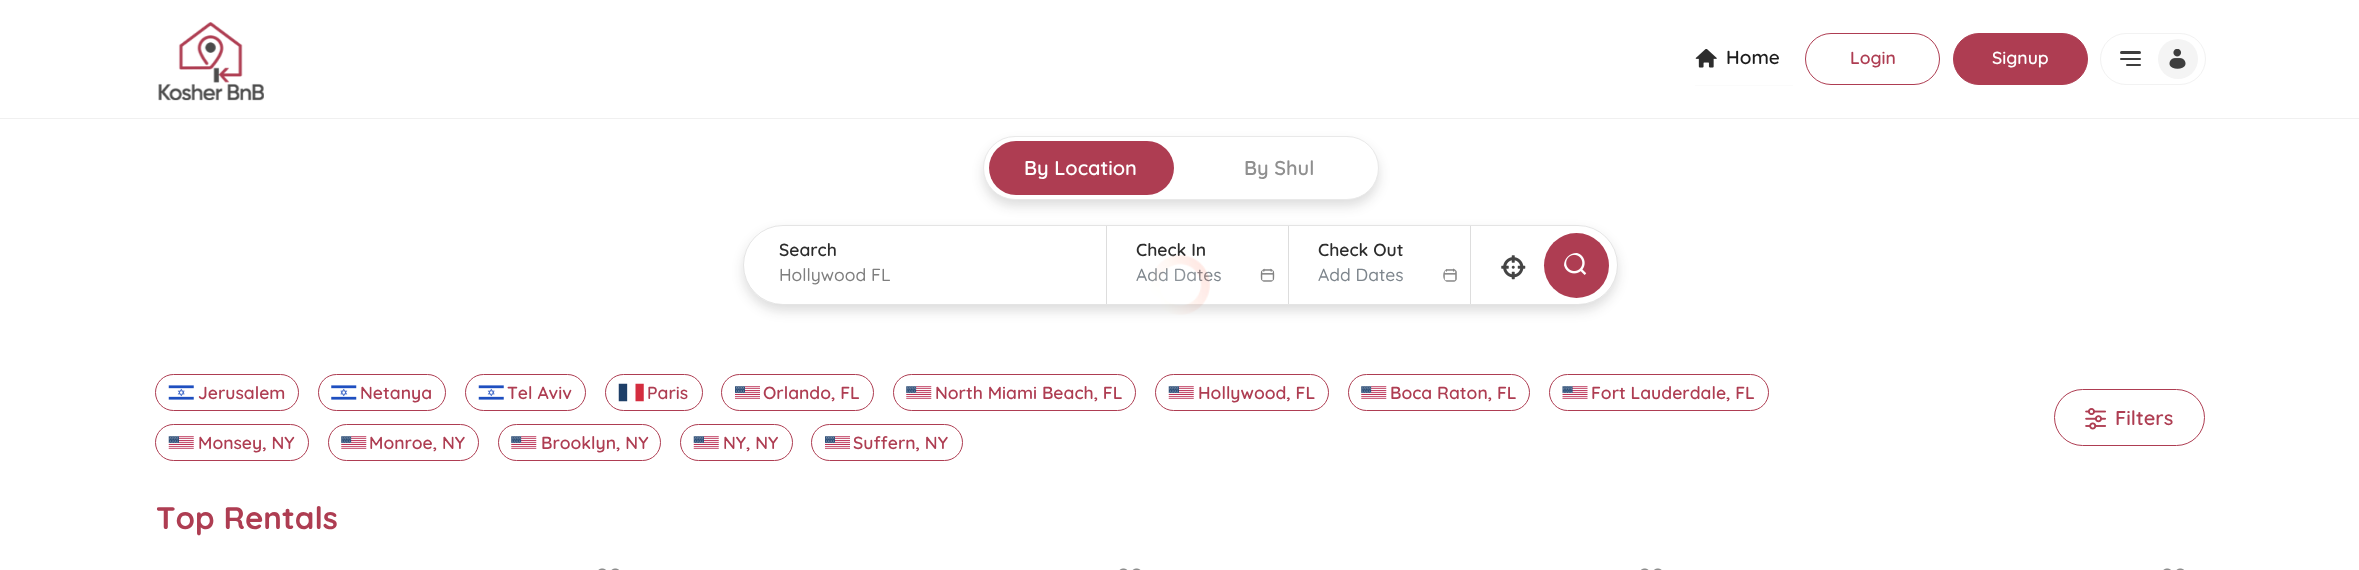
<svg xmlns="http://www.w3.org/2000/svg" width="2359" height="570">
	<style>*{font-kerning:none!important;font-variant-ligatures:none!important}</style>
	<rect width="100%" height="100%" fill="#FFFFFF" />
	<rect x="0" y="118" width="2359" height="1" fill="#F0F0F0" />
	<image x="158" y="22" width="106" height="79" href="assets/img1.png" />
	<rect x="1695" y="85" width="98" height="1" fill="#FBFBFB" />
	<image x="1695" y="49" width="22" height="19" href="assets/img2.png" />
	<text x="1726" y="64" font-family="Quicksand" font-size="19" font-weight="600" fill="#1D1D1D">Home</text>
	<rect x="1805.5" y="33.5" width="134" height="51" rx="25.5" fill="none" stroke="#AE3D52" />
	<text x="1850" y="64" font-family="Quicksand" font-size="17.5" font-weight="600" fill="#AE3D52">Login</text>
	<rect x="1953.5" y="33.5" width="134" height="51" rx="25.5" fill="#AE3D52" stroke="#AE3D52" />
	<text x="1992" y="64" font-family="Quicksand" font-size="17.5" font-weight="600" fill="#FFFFFF">Signup</text>
	<rect x="2100.5" y="33.5" width="105" height="51" rx="25.5" fill="none" stroke="#F2F2F2" />
	<rect x="2120" y="51" width="21" height="3" rx="1.5" fill="#3E3E3E" />
	<rect x="2120" y="58" width="21" height="2" rx="1" fill="#3E3E3E" />
	<rect x="2126" y="64" width="15" height="2" rx="1" fill="#3E3E3E" />
	<circle cx="2178" cy="59" r="20" fill="#F4F4F4" />
	<image x="2169" y="49" width="17" height="20" href="assets/img3.png" />
	<rect x="983" y="143" width="396" height="63" rx="31.5" fill="#1D1D1D" fill-opacity="0.15" filter="blur(6px)" />
	<rect x="983.5" y="136.5" width="395" height="63" rx="31.5" fill="#FFFFFF" stroke="#E9E9E9" />
	<rect x="989" y="141" width="185" height="54" rx="27" fill="#AE3D52" />
	<text x="1024" y="175" font-family="Quicksand" font-size="20" font-weight="600" fill="#FFFFFF">By Location</text>
	<text x="1244" y="175" font-family="Quicksand" font-size="20" font-weight="600" fill="#8F8F8F">By Shul</text>
	<rect x="743" y="231" width="875" height="80" rx="40" fill="#1D1D1D" fill-opacity="0.15" filter="blur(6px)" />
	<rect x="743" y="225" width="875" height="80" rx="40" fill="#FFFFFF" />
	<rect x="743.5" y="225.5" width="874" height="79" rx="39.5" fill="none" stroke="#1D1D1D" stroke-opacity="0.12" />
	<rect x="1106" y="226" width="1" height="78" fill="#DDDDDD" />
	<text x="779" y="256" font-family="Quicksand" font-size="17.5" font-weight="600" fill="#2C2C2C">Search</text>
	<text x="779" y="281" font-family="Quicksand" font-size="17.5" font-weight="500" fill="#7E7E7E">Hollywood FL</text>
	<rect x="1288" y="226" width="1" height="78" fill="#DDDDDD" />
	<text x="1136" y="256" font-family="Quicksand" font-size="17.5" font-weight="600" fill="#2C2C2C">Check In</text>
	<text x="1136" y="281" font-family="Quicksand" font-size="17.5" font-weight="500" fill="#7D858C">Add Dates</text>
	<image x="1260" y="268" width="15" height="14" href="assets/img4.png" />
	<rect x="1470" y="226" width="1" height="78" fill="#DDDDDD" />
	<text x="1318" y="256" font-family="Quicksand" font-size="17.5" font-weight="600" fill="#2C2C2C">Check Out</text>
	<text x="1318" y="281" font-family="Quicksand" font-size="17.5" font-weight="500" fill="#7D858C">Add Dates</text>
	<image x="1443" y="268" width="14" height="14" href="assets/img5.png" />
	<image x="1501" y="255" width="25" height="25" href="assets/img6.png" />
	<circle cx="1576.5" cy="265.5" r="32.5" fill="#AE3D52" />
	<image x="1564" y="253" width="23" height="22" href="assets/img7.png" />
	<rect x="155.5" y="374.5" width="143" height="36" rx="18" fill="none" stroke="#AE3D52" />
	<image x="168" y="385" width="26" height="15" href="assets/img8.png" />
	<text x="198" y="399" font-family="Quicksand" font-size="17.5" font-weight="600" fill="#AE3D52">Jerusalem</text>
	<rect x="318.5" y="374.5" width="127" height="36" rx="18" fill="none" stroke="#AE3D52" />
	<image x="331" y="385" width="26" height="15" href="assets/img9.png" />
	<text x="360" y="399" font-family="Quicksand" font-size="17.5" font-weight="600" fill="#AE3D52">Netanya</text>
	<rect x="465.5" y="374.5" width="120" height="36" rx="18" fill="none" stroke="#AE3D52" />
	<image x="478" y="385" width="26" height="15" href="assets/img8.png" />
	<text x="507" y="399" font-family="Quicksand" font-size="17.5" font-weight="600" fill="#AE3D52">Tel Aviv</text>
	<rect x="605.5" y="374.5" width="97" height="36" rx="18" fill="none" stroke="#AE3D52" />
	<image x="618" y="383" width="26" height="19" href="assets/img10.png" />
	<text x="647" y="399" font-family="Quicksand" font-size="17.5" font-weight="600" fill="#AE3D52">Paris</text>
	<rect x="721.5" y="374.5" width="152" height="36" rx="18" fill="none" stroke="#AE3D52" />
	<image x="735" y="386" width="25" height="13" href="assets/img11.png" />
	<text x="763" y="399" font-family="Quicksand" font-size="17.5" font-weight="600" fill="#AE3D52">Orlando, FL</text>
	<rect x="893.5" y="374.5" width="242" height="36" rx="18" fill="none" stroke="#AE3D52" />
	<image x="906" y="386" width="26" height="13" href="assets/img12.png" />
	<text x="935" y="399" font-family="Quicksand" font-size="17.5" font-weight="600" fill="#AE3D52">North Miami Beach, FL</text>
	<rect x="1155.5" y="374.5" width="173" height="36" rx="18" fill="none" stroke="#AE3D52" />
	<image x="1168" y="386" width="26" height="13" href="assets/img13.png" />
	<text x="1198" y="399" font-family="Quicksand" font-size="17.5" font-weight="600" fill="#AE3D52">Hollywood, FL</text>
	<rect x="1348.5" y="374.5" width="181" height="36" rx="18" fill="none" stroke="#AE3D52" />
	<image x="1361" y="386" width="26" height="13" href="assets/img12.png" />
	<text x="1390" y="399" font-family="Quicksand" font-size="17.5" font-weight="600" fill="#AE3D52">Boca Raton, FL</text>
	<rect x="1549.5" y="374.5" width="219" height="36" rx="18" fill="none" stroke="#AE3D52" />
	<image x="1562" y="386" width="26" height="13" href="assets/img14.png" />
	<text x="1591" y="399" font-family="Quicksand" font-size="17.5" font-weight="600" fill="#AE3D52">Fort Lauderdale, FL</text>
	<rect x="155.5" y="424.5" width="153" height="36" rx="18" fill="none" stroke="#AE3D52" />
	<image x="168" y="436" width="26" height="13" href="assets/img15.png" />
	<text x="198" y="449" font-family="Quicksand" font-size="17.5" font-weight="600" fill="#AE3D52">Monsey, NY</text>
	<rect x="328.5" y="424.5" width="150" height="36" rx="18" fill="none" stroke="#AE3D52" />
	<image x="341" y="436" width="26" height="13" href="assets/img12.png" />
	<text x="369" y="449" font-family="Quicksand" font-size="17.5" font-weight="600" fill="#AE3D52">Monroe, NY</text>
	<rect x="498.5" y="424.5" width="162" height="36" rx="18" fill="none" stroke="#AE3D52" />
	<image x="511" y="436" width="26" height="13" href="assets/img12.png" />
	<text x="541" y="449" font-family="Quicksand" font-size="17.5" font-weight="600" fill="#AE3D52">Brooklyn, NY</text>
	<rect x="680.5" y="424.5" width="112" height="36" rx="18" fill="none" stroke="#AE3D52" />
	<image x="693" y="436" width="26" height="13" href="assets/img13.png" />
	<text x="723" y="449" font-family="Quicksand" font-size="17.5" font-weight="600" fill="#AE3D52">NY, NY</text>
	<rect x="811.5" y="424.5" width="151" height="36" rx="18" fill="none" stroke="#AE3D52" />
	<image x="825" y="436" width="25" height="13" href="assets/img11.png" />
	<text x="853" y="449" font-family="Quicksand" font-size="17.5" font-weight="600" fill="#AE3D52">Suffern, NY</text>
	<rect x="2054.5" y="389.5" width="150" height="56" rx="28" fill="none" stroke="#AE3D52" />
	<image x="2085" y="408" width="21" height="22" href="assets/img16.png" />
	<text x="2115" y="425" font-family="Quicksand" font-size="20" font-weight="600" fill="#AE3D52">Filters</text>
	<text x="156" y="529" font-family="Quicksand" font-size="31.25" font-weight="700" fill="#AE3D52">Top Rentals</text>
	<image x="598" y="568" width="21" height="2" href="assets/img17.png" />
	<image x="1119" y="568" width="22" height="2" href="assets/img18.png" />
	<image x="1641" y="568" width="21" height="2" href="assets/img19.png" />
	<image x="2163" y="568" width="21" height="2" href="assets/img17.png" />
	<image x="1150" y="255" width="60" height="50" href="assets/img20.png" />
	<image x="1150" y="255" width="60" height="60" href="assets/img21.png" />
</svg>
